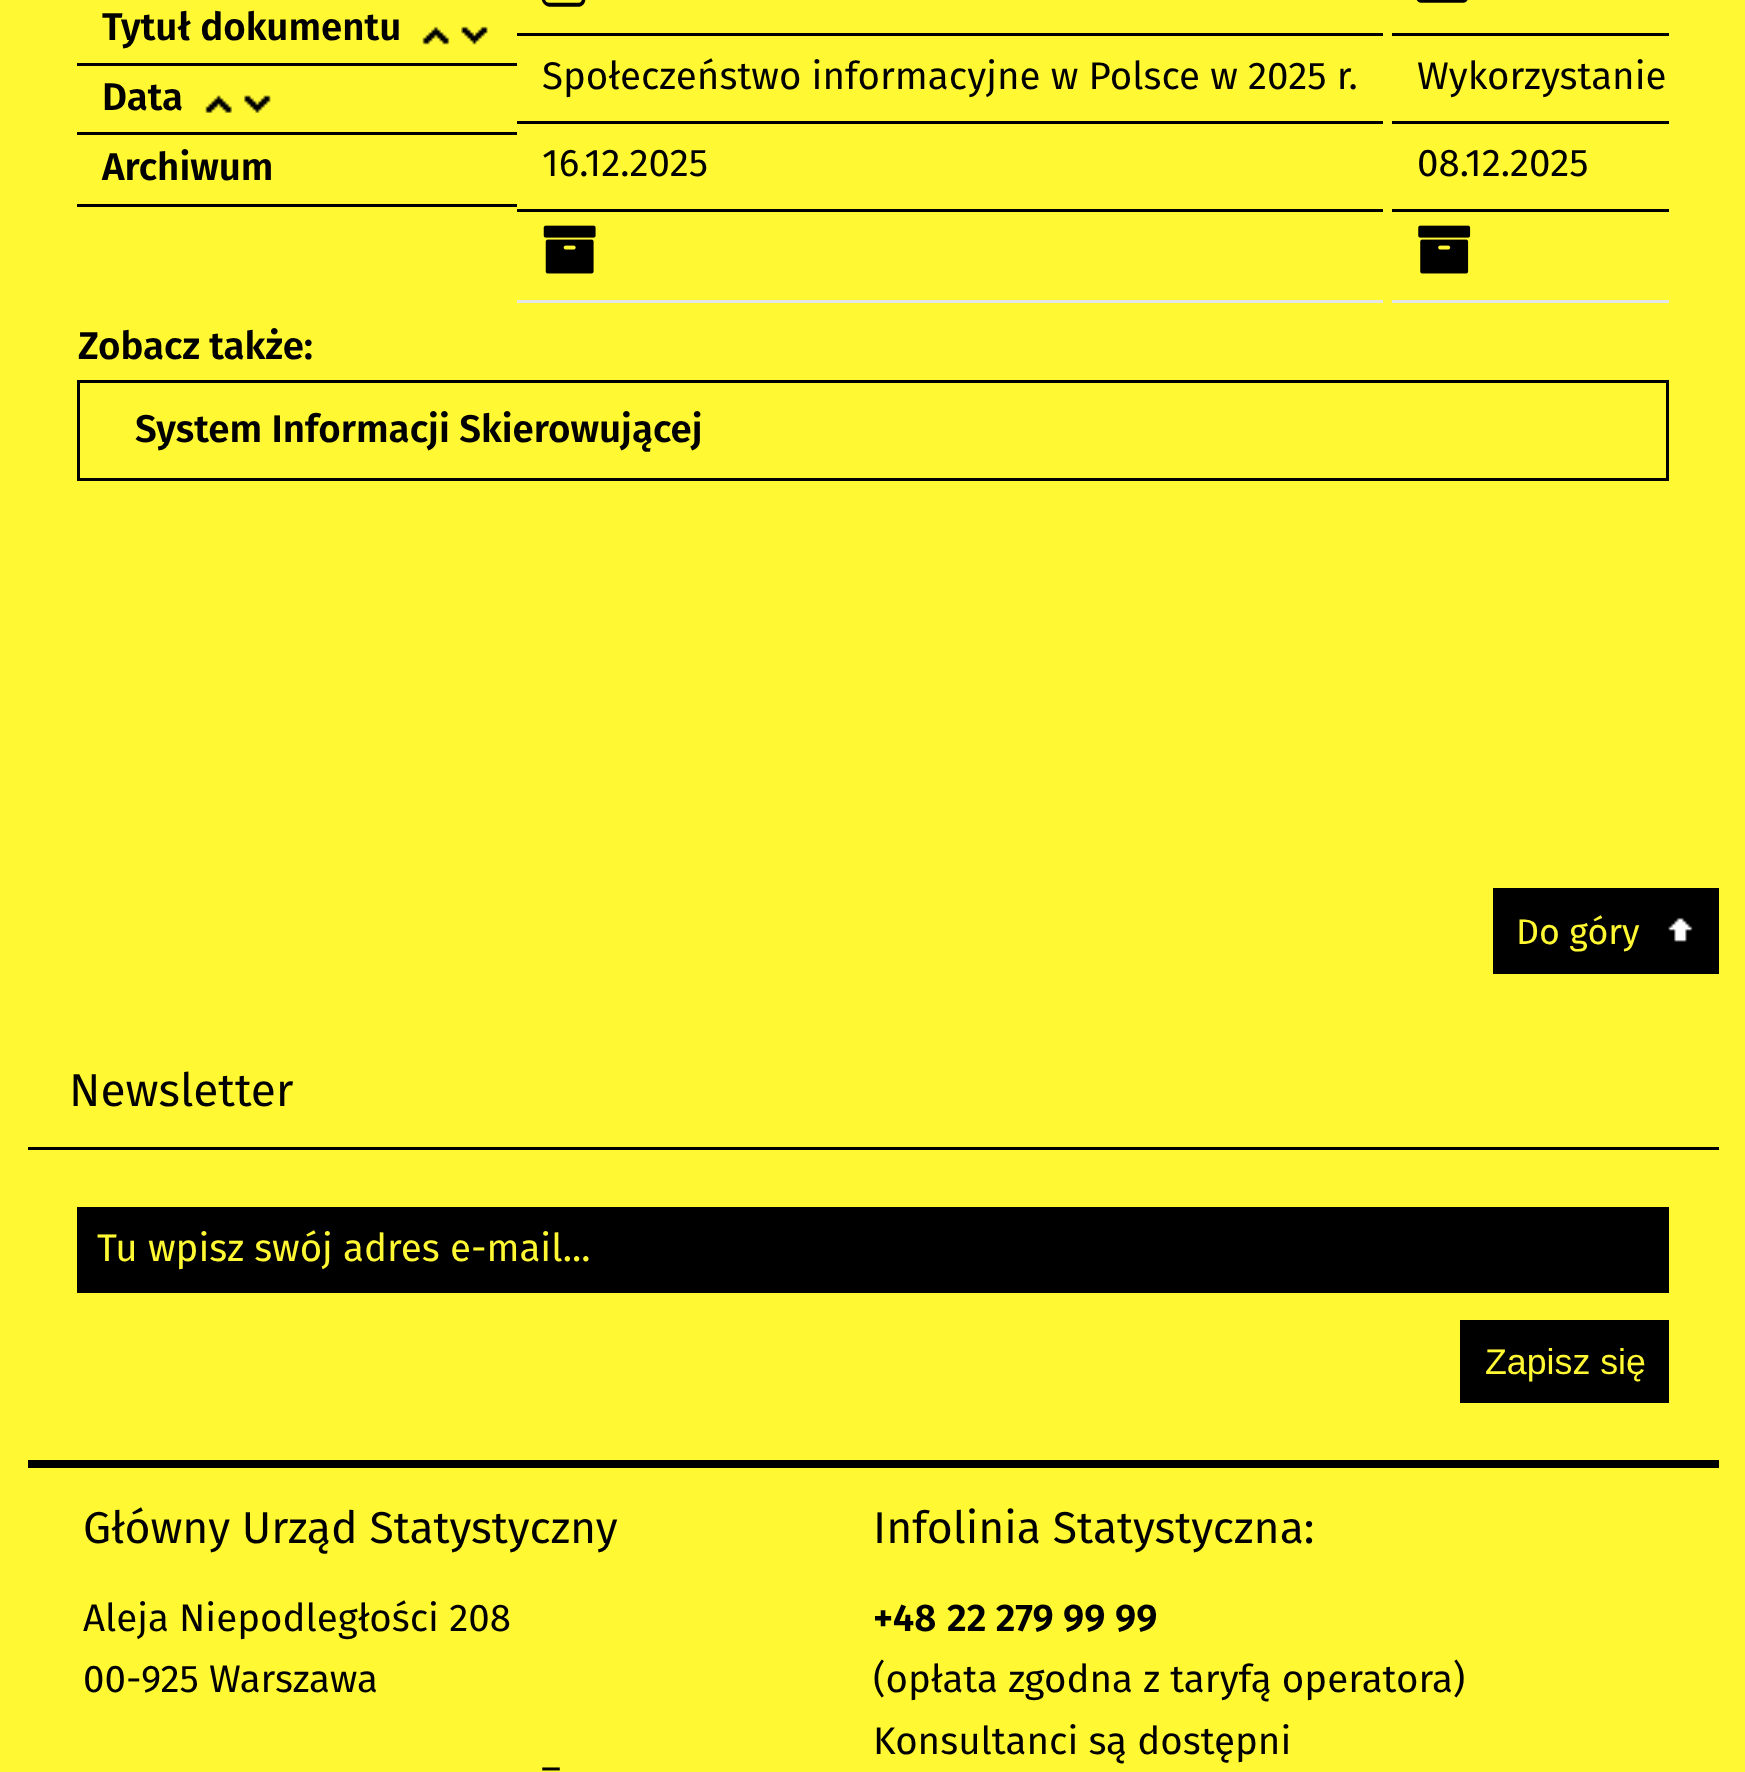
<svg xmlns="http://www.w3.org/2000/svg" width="1745" height="1772">
	<rect width="100%" height="100%" fill="#FFF832" />
	<rect x="77" y="63" width="440" height="3" fill="#000000" />
	<image x="422" y="26" width="66" height="19" href="assets/img1.png" />
	<text x="102" y="40" font-family="Fira Sans" font-size="38.5" font-weight="600" fill="#000000">Tytuł dokumentu</text>
	<rect x="77" y="132" width="440" height="3" fill="#000000" />
	<image x="205" y="95" width="66" height="18" href="assets/img2.png" />
	<text x="102" y="110" font-family="Fira Sans" font-size="38.5" font-weight="600" fill="#000000">Data</text>
	<rect x="77" y="204" width="440" height="3" fill="#000000" />
	<text x="102" y="180" font-family="Fira Sans" font-size="38.5" font-weight="600" fill="#000000">Archiwum</text>
	<rect x="517" y="33" width="866" height="3" fill="#000000" />
	<image x="541" y="0" width="45" height="7" href="assets/img3.png" />
	<rect x="517" y="121" width="866" height="3" fill="#000000" />
	<text x="542" y="89" font-family="Fira Sans" font-size="38.5" fill="#000000">Społeczeństwo informacyjne w Polsce w 2025 r.</text>
	<rect x="517" y="209" width="866" height="3" fill="#000000" />
	<text x="542" y="176" font-family="Fira Sans" font-size="38.5" fill="#000000">16.12.2025</text>
	<rect x="517" y="300" width="866" height="3" fill="#E5E5E5" />
	<image x="543" y="225" width="53" height="49" href="assets/img4.png" />
	<rect x="1392" y="33" width="277" height="3" fill="#000000" />
	<image x="1416" y="0" width="52" height="3" href="assets/img5.png" />
	<rect x="1392" y="121" width="277" height="3" fill="#000000" />
	<text x="1417" y="89" font-family="Fira Sans" font-size="38.5" fill="#000000">Wykorzystanie</text>
	<rect x="1392" y="209" width="277" height="3" fill="#000000" />
	<text x="1417" y="176" font-family="Fira Sans" font-size="38.5" fill="#000000">08.12.2025</text>
	<rect x="1392" y="300" width="277" height="3" fill="#E5E5E5" />
	<image x="1418" y="225" width="53" height="49" href="assets/img6.png" />
	<text x="78" y="359" font-family="Fira Sans" font-size="38.5" font-weight="600" fill="#000000">Zobacz także:</text>
	<rect x="78.5" y="381.5" width="1589" height="98" fill="none" stroke="#000000" stroke-width="3" />
	<text x="135" y="442" font-family="Fira Sans" font-size="38.5" font-weight="600" fill="#000000">System Informacji Skierowującej</text>
	<rect x="1493" y="888" width="226" height="86" fill="#000000" />
	<text x="1516" y="944" font-family="Fira Sans" font-size="35.75" fill="#FFF832">Do góry</text>
	<image x="1668" y="918" width="25" height="24" href="assets/img7.png" />
	<rect x="28" y="1147" width="1691" height="3" fill="#000000" />
	<text x="69" y="1106" font-family="Fira Sans" font-size="46" fill="#000000">Newsletter</text>
	<rect x="77" y="1207" width="1592" height="86" fill="#000000" />
	<text x="97" y="1261" font-family="Fira Sans" font-size="38.5" fill="#FFF832">Tu wpisz swój adres e-mail...</text>
	<rect x="1460" y="1320" width="209" height="83" fill="#000000" />
	<text x="1485" y="1374" font-family="Liberation Sans" font-size="35.75" fill="#FFF832">Zapisz się</text>
	<rect x="28" y="1460" width="1691" height="8" fill="#000000" />
	<text x="83" y="1543" font-family="Fira Sans" font-size="44.5" fill="#000000">Główny Urząd Statystyczny</text>
	<g font-family="Fira Sans" font-size="38.5" fill="#000000">
		<text x="83" y="1631">Aleja Niepodległości 208</text>
		<text x="83" y="1692">00-925 Warszawa</text>
		<text x="541" y="1781">–</text>
	</g>
	<text x="873" y="1543" font-family="Fira Sans" font-size="44.5" fill="#000000">Infolinia Statystyczna:</text>
	<g font-family="Fira Sans" font-size="38.5" font-weight="600" fill="#000000">
		<text x="873" y="1631">+48</text>
		<text x="947" y="1631">22 279 99 99</text>
	</g>
	<g font-family="Fira Sans" font-size="38.5" fill="#000000">
		<text x="873" y="1692">(opłata zgodna z taryfą operatora)</text>
		<text x="873" y="1754">Konsultanci są dostępni</text>
	</g>
</svg>
